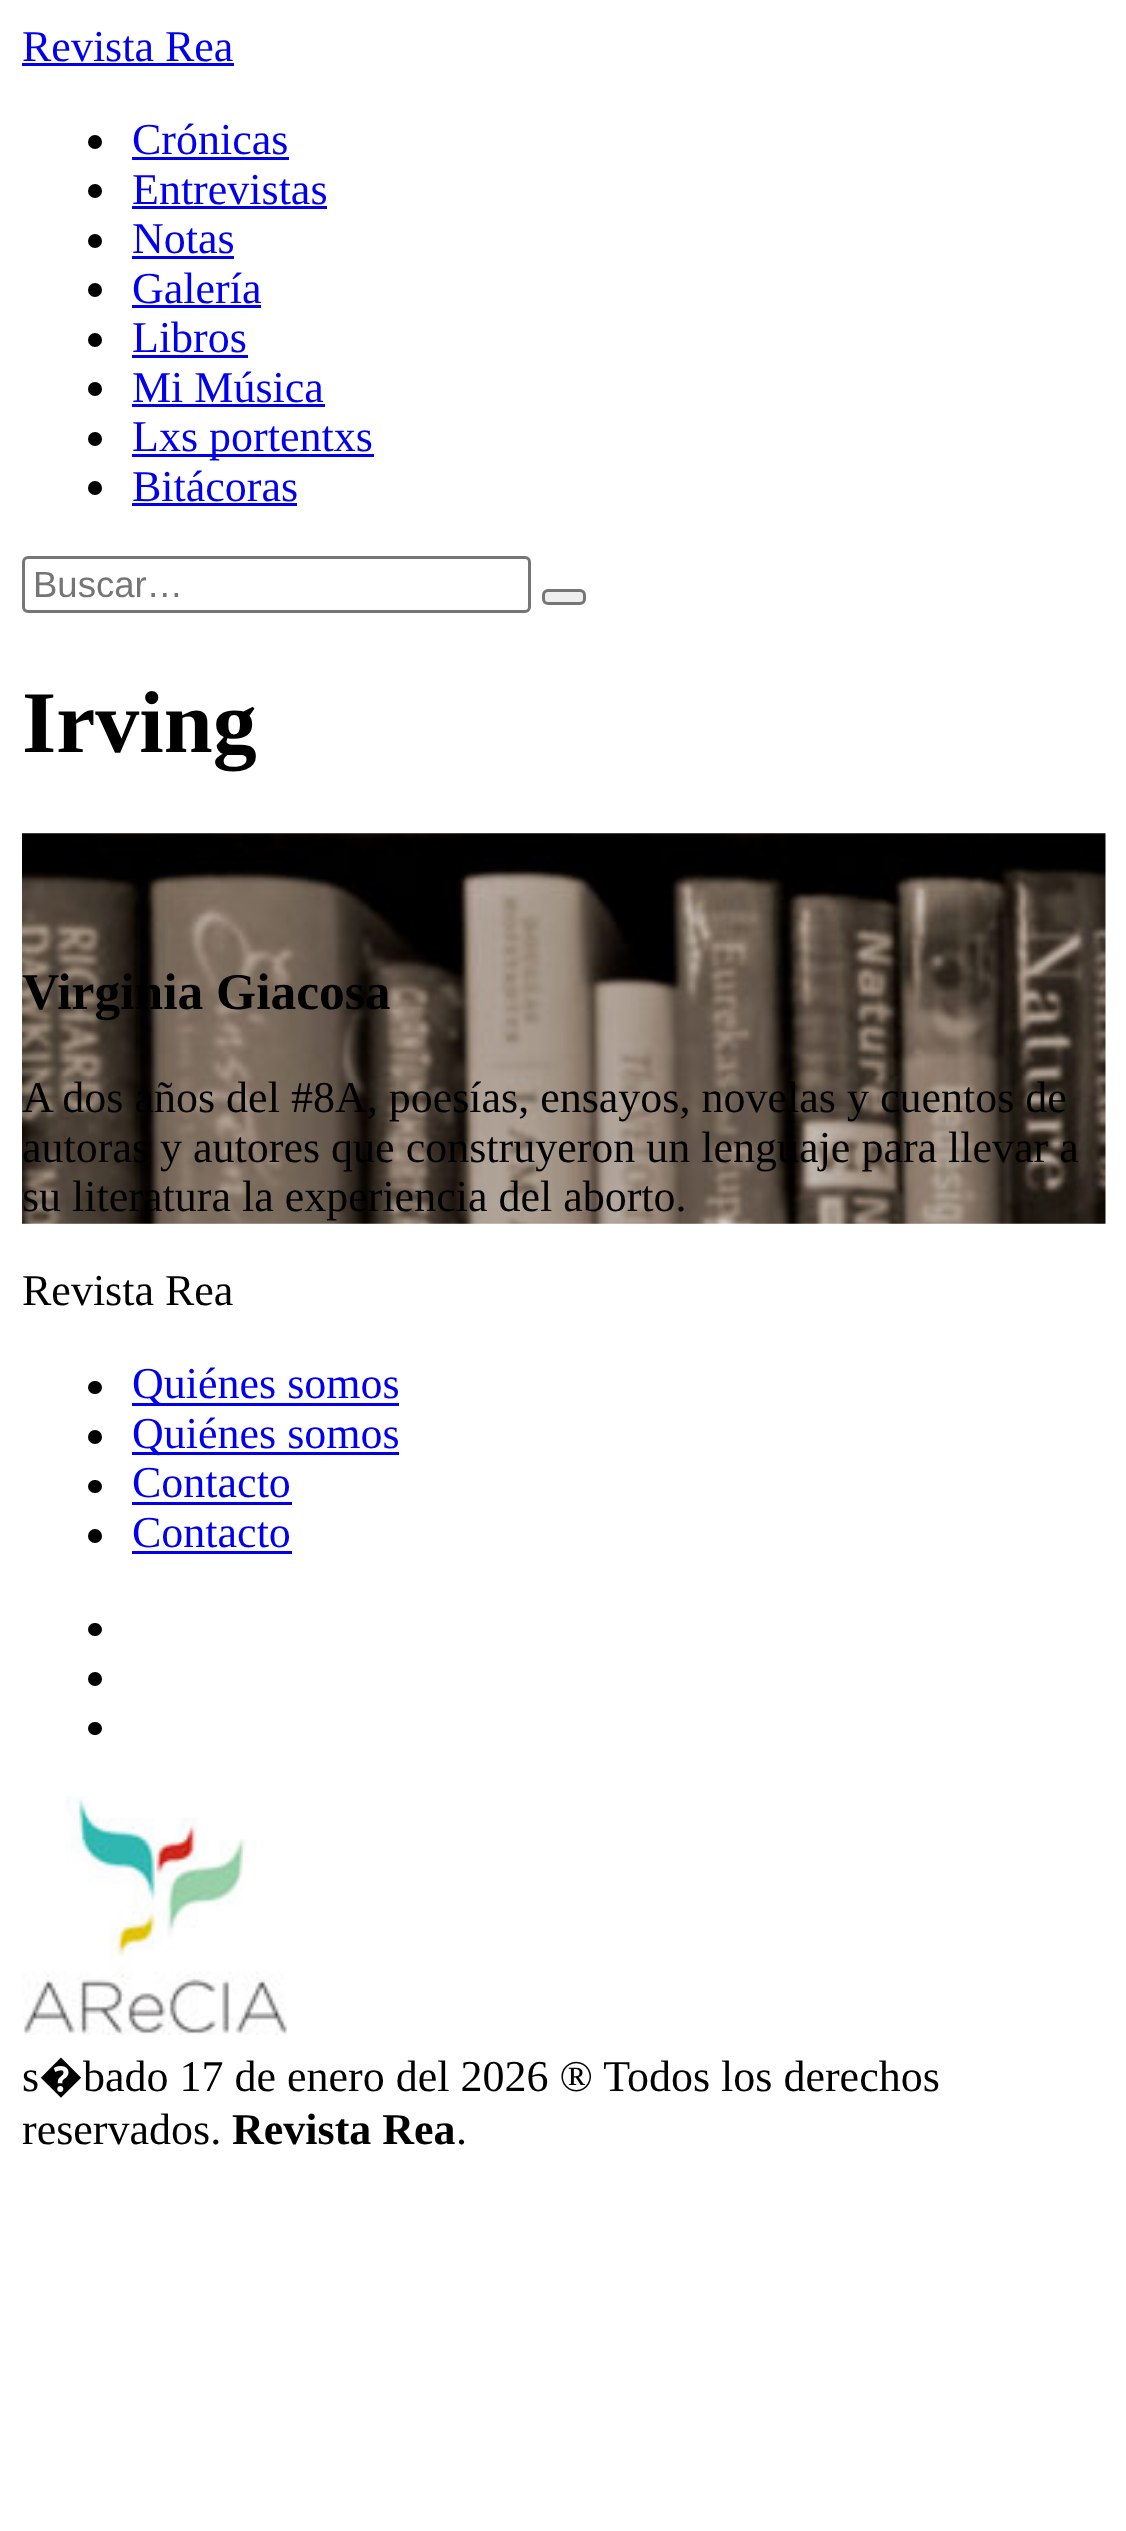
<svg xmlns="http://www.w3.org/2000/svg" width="1126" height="2531">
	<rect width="100%" height="100%" fill="#FFFFFF" />
	<text x="22" y="61" font-family="Liberation Serif" font-size="44" fill="#0000EE">Revista Rea</text>
	<rect x="22" y="63" width="212" height="3" fill="#0000EE" />
	<circle cx="95" cy="142" r="7" fill="#000000" />
	<text x="132" y="154" font-family="Liberation Serif" font-size="44" fill="#0000EE">Crónicas</text>
	<rect x="132" y="157" width="157" height="3" fill="#0000EE" />
	<circle cx="95" cy="191" r="7" fill="#000000" />
	<text x="132" y="204" font-family="Liberation Serif" font-size="44" fill="#0000EE">Entrevistas</text>
	<rect x="132" y="206" width="195" height="3" fill="#0000EE" />
	<circle cx="95" cy="241" r="7" fill="#000000" />
	<text x="132" y="253" font-family="Liberation Serif" font-size="44" fill="#0000EE">Notas</text>
	<rect x="132" y="256" width="102" height="3" fill="#0000EE" />
	<circle cx="95" cy="290" r="7" fill="#000000" />
	<text x="132" y="303" font-family="Liberation Serif" font-size="44" fill="#0000EE">Galería</text>
	<rect x="132" y="305" width="129" height="3" fill="#0000EE" />
	<circle cx="95" cy="340" r="7" fill="#000000" />
	<text x="132" y="352" font-family="Liberation Serif" font-size="44" fill="#0000EE">Libros</text>
	<rect x="132" y="355" width="116" height="3" fill="#0000EE" />
	<circle cx="95" cy="389" r="7" fill="#000000" />
	<text x="132" y="402" font-family="Liberation Serif" font-size="44" fill="#0000EE">Mi Música</text>
	<rect x="132" y="404" width="193" height="3" fill="#0000EE" />
	<circle cx="95" cy="439" r="7" fill="#000000" />
	<rect x="132" y="454" width="242" height="3" fill="#0000EE" />
	<text x="132" y="451" font-family="Liberation Serif" font-size="44" fill="#0000EE">Lxs portentxs</text>
	<circle cx="95" cy="488" r="7" fill="#000000" />
	<text x="132" y="501" font-family="Liberation Serif" font-size="44" fill="#0000EE">Bitácoras</text>
	<rect x="132" y="503" width="165" height="3" fill="#0000EE" />
	<rect x="23.5" y="557.5" width="506" height="54" rx="4.5" fill="none" stroke="#767676" stroke-width="3" />
	<text x="33" y="597" font-family="Liberation Sans" font-size="36.5" fill="#757575">Buscar…</text>
	<rect x="543.5" y="590.5" width="41" height="13" rx="4.5" fill="#EFEFEF" stroke="#767676" stroke-width="3" />
	<text x="22" y="752" font-family="Liberation Serif" font-size="88" font-weight="700" fill="#000000">Irving</text>
	<image x="22" y="833" width="1084" height="391" href="assets/img1.png" />
	<text x="22" y="1009" font-family="Liberation Serif" font-size="51.5" font-weight="700" fill="#000000">Virginia Giacosa</text>
	<g font-family="Liberation Serif" font-size="44" fill="#000000">
		<text x="22" y="1112">A dos años del #8A, poesías, ensayos, novelas y cuentos de</text>
		<text x="22" y="1162">autoras y autores que construyeron un lenguaje para llevar a</text>
		<text x="22" y="1211">su literatura la experiencia del aborto.</text>
		<text x="22" y="1305">Revista Rea</text>
	</g>
	<rect x="88" y="1381" width="14" height="13" rx="6.5" fill="#000000" />
	<rect x="132" y="1403" width="267" height="3" fill="#0000EE" />
	<text x="132" y="1398" font-family="Liberation Serif" font-size="44" fill="#0000EE">Quiénes somos</text>
	<circle cx="95" cy="1437" r="7" fill="#000000" />
	<rect x="132" y="1452" width="267" height="3" fill="#0000EE" />
	<text x="132" y="1448" font-family="Liberation Serif" font-size="44" fill="#0000EE">Quiénes somos</text>
	<rect x="88" y="1480" width="14" height="13" rx="6.5" fill="#000000" />
	<text x="132" y="1497" font-family="Liberation Serif" font-size="44" fill="#0000EE">Contacto</text>
	<rect x="132" y="1502" width="160" height="3" fill="#0000EE" />
	<circle cx="95" cy="1536" r="7" fill="#000000" />
	<text x="132" y="1547" font-family="Liberation Serif" font-size="44" fill="#0000EE">Contacto</text>
	<rect x="132" y="1551" width="160" height="3" fill="#0000EE" />
	<rect x="88" y="1623" width="14" height="13" rx="6.5" fill="#000000" />
	<circle cx="95" cy="1679" r="7" fill="#000000" />
	<rect x="88" y="1722" width="14" height="13" rx="6.5" fill="#000000" />
	<image x="22" y="1796" width="265" height="239" href="assets/img2.png" />
	<text x="22" y="2091" font-family="Liberation Serif" font-size="44" fill="#000000">s</text>
	<text x="39" y="2091" font-family="Noto Sans" font-size="44" fill="#000000">�</text>
	<g font-family="Liberation Serif" font-size="44" fill="#000000">
		<text x="83" y="2091">bado 17 de enero del 2026 ® Todos los derechos</text>
		<text x="22" y="2144">reservados.</text>
	</g>
	<text x="232" y="2144" font-family="Liberation Serif" font-size="44" font-weight="700" fill="#000000">Revista Rea</text>
	<text x="456" y="2144" font-family="Liberation Serif" font-size="44" fill="#000000">.</text>
</svg>
